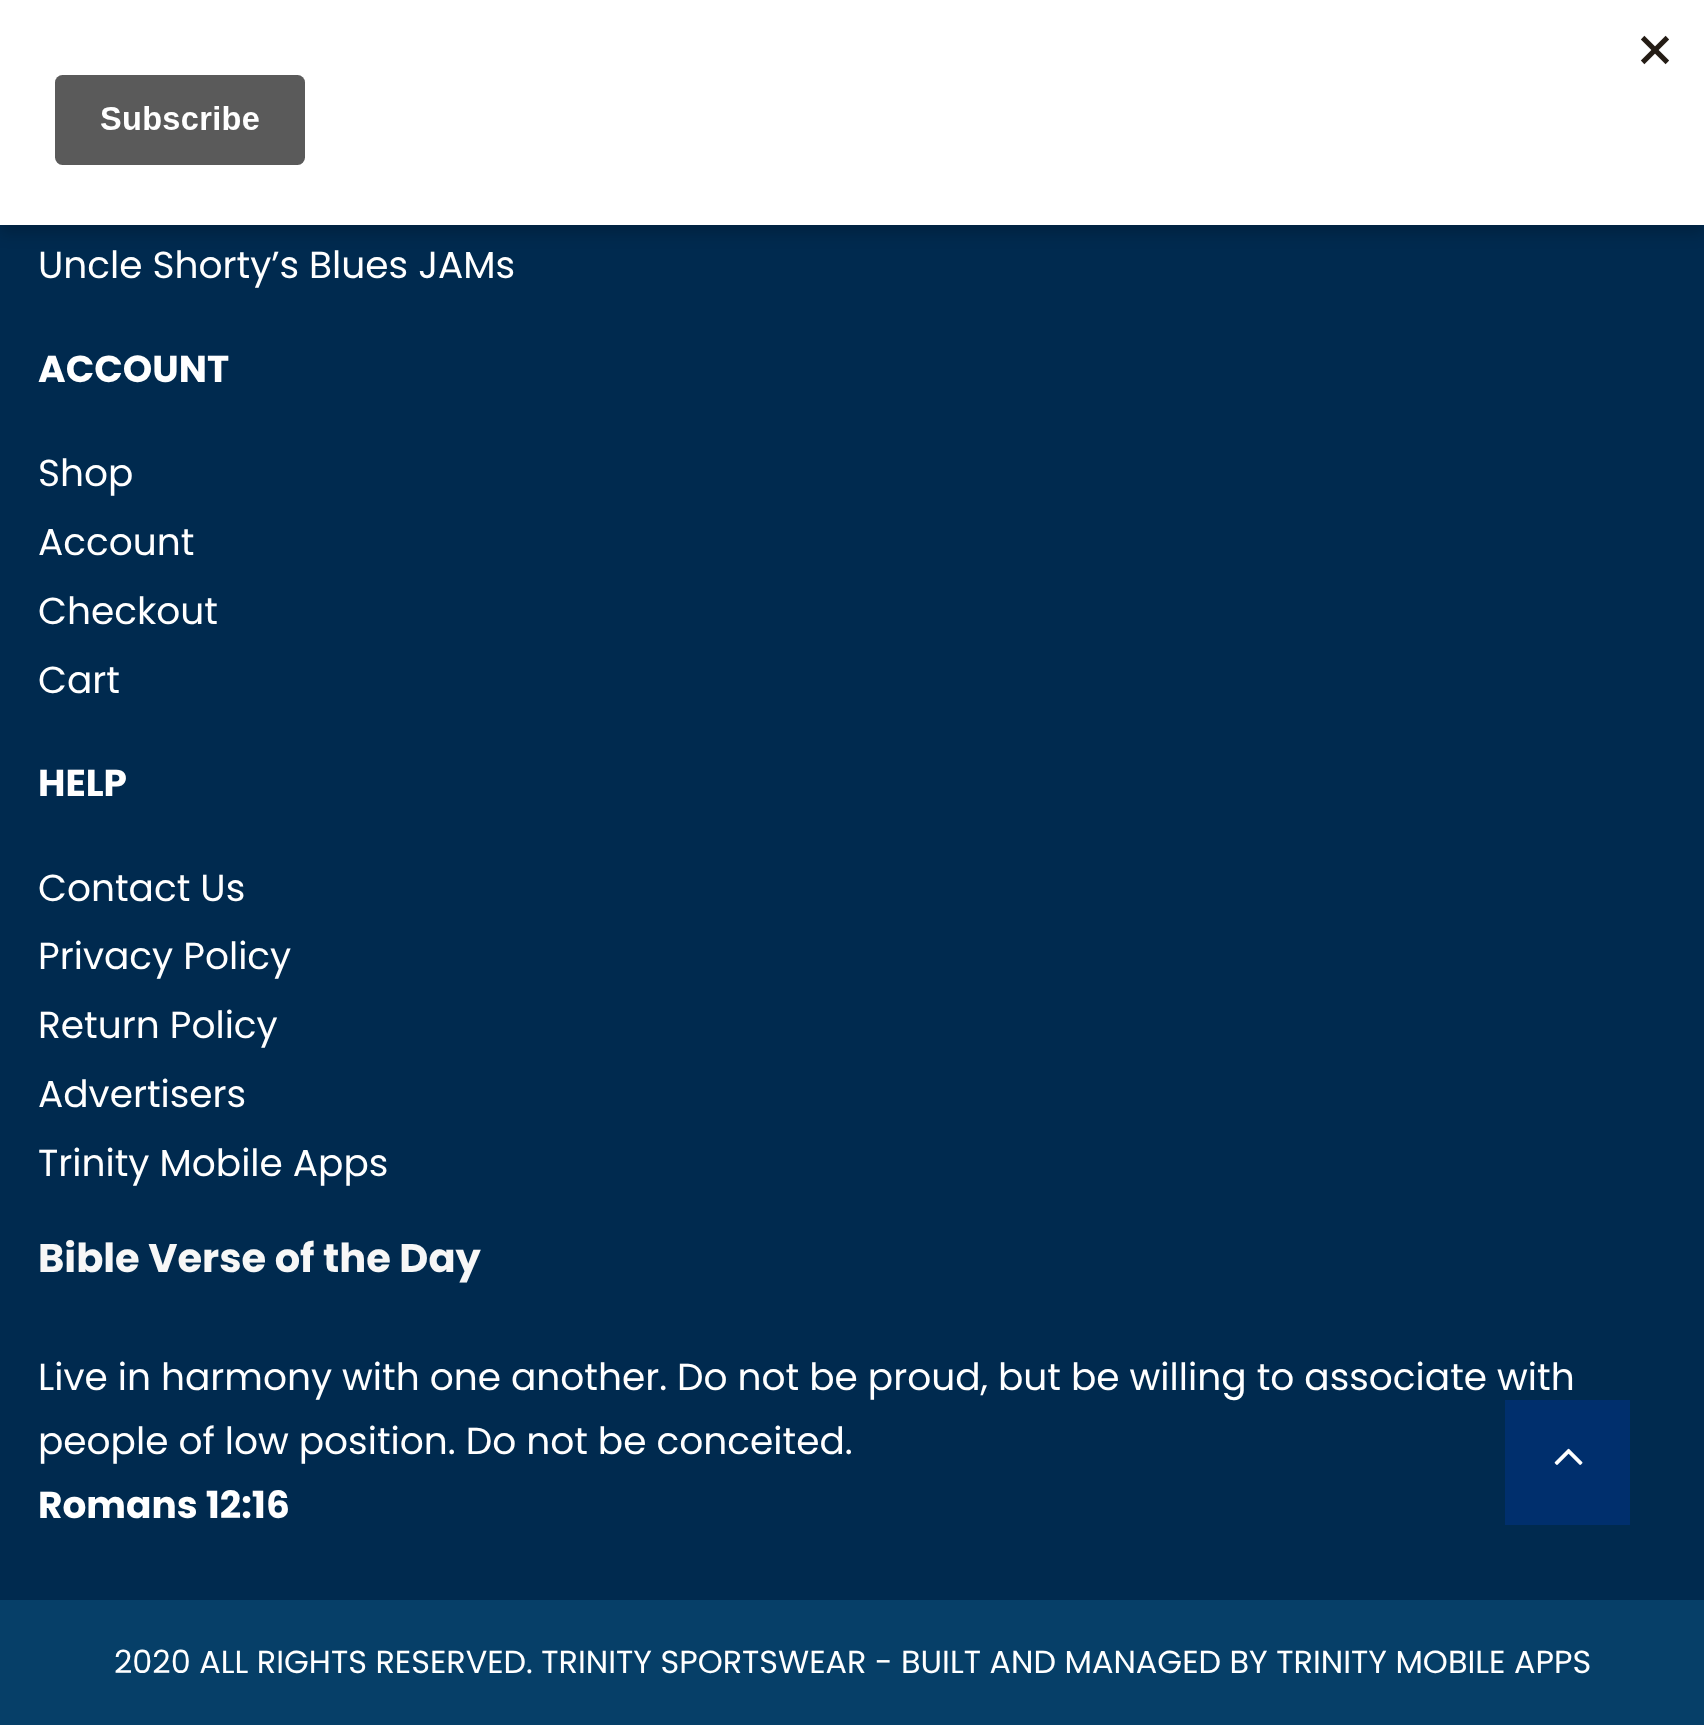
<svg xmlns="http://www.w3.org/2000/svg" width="1704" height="1725">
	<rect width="100%" height="100%" fill="#002A4F" />
	<rect x="0" y="8" width="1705" height="225" fill="#000000" fill-opacity="0.2" filter="blur(7.5px)" />
	<rect x="0" y="0" width="1704" height="225" fill="#FFFFFF" />
	<image x="55" y="35" width="1614" height="130" href="assets/img1.png" />
	<text x="38" y="278" font-family="Poppins" font-size="37.5" fill="#FFFFFF">Uncle Shorty’s Blues JAMs</text>
	<text x="38" y="382" font-family="Poppins" font-size="37.5" font-weight="700" fill="#FFFFFF">ACCOUNT</text>
	<g font-family="Poppins" font-size="37.5" fill="#FFFFFF">
		<text x="38" y="486">Shop</text>
		<text x="38" y="555">Account</text>
		<text x="38" y="624">Checkout</text>
		<text x="38" y="693">Cart</text>
	</g>
	<text x="38" y="796" font-family="Poppins" font-size="37.5" font-weight="700" fill="#FFFFFF">HELP</text>
	<g font-family="Poppins" font-size="37.5" fill="#FFFFFF">
		<text x="38" y="901">Contact Us</text>
		<text x="38" y="969">Privacy Policy</text>
		<text x="38" y="1038">Return Policy</text>
		<text x="38" y="1107">Advertisers</text>
		<text x="38" y="1176">Trinity Mobile Apps</text>
	</g>
	<text x="38" y="1272" font-family="Poppins" font-size="40" font-weight="700" fill="#F7F7F7">Bible Verse of the Day</text>
	<g font-family="Poppins" font-size="37.5" fill="#FFFFFF">
		<text x="38" y="1390">Live in harmony with one another. Do not be proud, but be willing to associate with</text>
		<text x="38" y="1454">people of low position. Do not be conceited.</text>
	</g>
	<text x="38" y="1518" font-family="Poppins" font-size="37.5" font-weight="700" fill="#FFFFFF">Romans 12:16</text>
	<rect x="0" y="1600" width="1704" height="125" fill="#063F68" />
	<text x="114" y="1673" font-family="Poppins" font-size="31.9" fill="#FFFFFF">2020 ALL RIGHTS RESERVED. TRINITY SPORTSWEAR - BUILT AND MANAGED BY TRINITY MOBILE APPS</text>
	<rect x="1505" y="1400" width="125" height="125" fill="#002F6D" />
	<image x="1554" y="1448" width="29" height="17" href="assets/img2.png" />
</svg>
